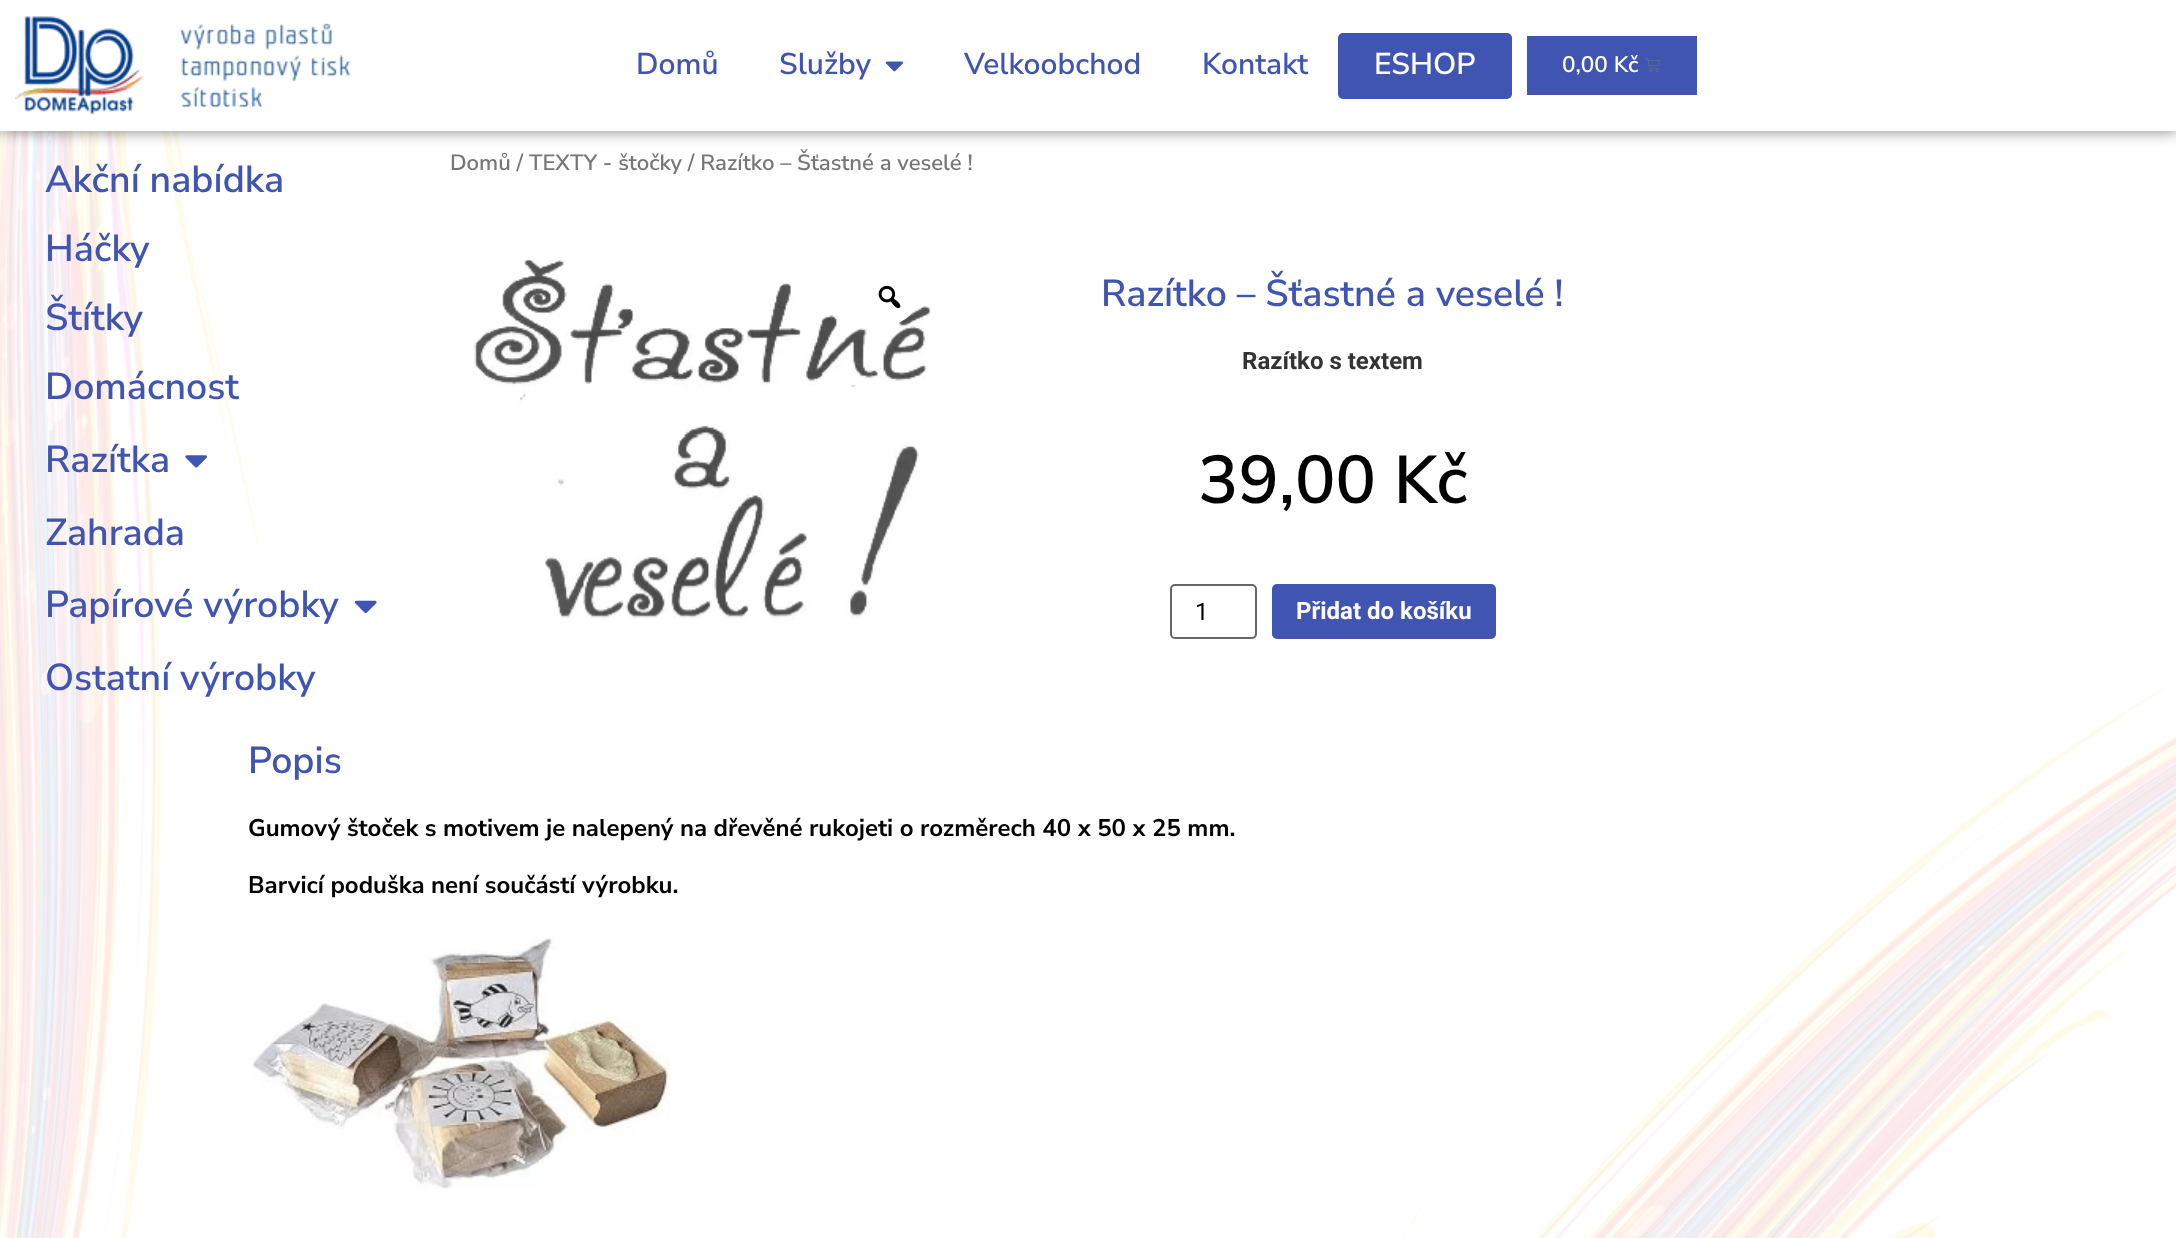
<svg xmlns="http://www.w3.org/2000/svg" width="2176" height="1238">
	<rect width="100%" height="100%" fill="#FFFFFF" />
	<image x="0" y="131" width="2176" height="1107" href="assets/img1.png" />
	<rect x="0" y="131" width="2176" height="597" fill="#FFFFFF" fill-opacity="0.9" />
	<rect x="0" y="0" width="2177" height="131" fill="#000000" fill-opacity="0.5" filter="blur(7.5px)" />
	<rect x="0" y="0" width="2176" height="131" fill="#FFFFFF" />
	<image x="15" y="16" width="335" height="99" href="assets/img2.png" />
	<g font-family="Nunito Sans" font-size="30" font-weight="600" fill="#4054B2">
		<text x="636" y="74">Domů</text>
		<text x="779" y="74">Služby</text>
	</g>
	<image x="885" y="61" width="19" height="11" href="assets/img3.png" />
	<g font-family="Nunito Sans" font-size="30" font-weight="600" fill="#4054B2">
		<text x="964" y="74">Velkoobchod</text>
		<text x="1202" y="74">Kontakt</text>
	</g>
	<rect x="1338" y="33" width="174" height="66" rx="5" fill="#4054B2" />
	<text x="1374" y="74" font-family="Nunito Sans" font-size="30" font-weight="600" fill="#FFFFFF">ESHOP</text>
	<rect x="1527" y="36" width="170" height="59" fill="#4054B2" />
	<text x="1562" y="72" font-family="Nunito Sans" font-size="22.5" font-weight="600" fill="#FFFFFF">0,00 Kč</text>
	<image x="1645" y="58" width="15" height="14" href="assets/img4.png" />
	<g font-family="Nunito Sans" font-size="37.5" font-weight="600" fill="#4054B2">
		<text x="45" y="192">Akční nabídka</text>
		<text x="45" y="261">Háčky</text>
		<text x="45" y="330">Štítky</text>
		<text x="45" y="399">Domácnost</text>
		<text x="45" y="472">Razítka</text>
	</g>
	<image x="185" y="455" width="23" height="13" href="assets/img5.png" />
	<g font-family="Nunito Sans" font-size="37.5" font-weight="600" fill="#4054B2">
		<text x="45" y="545">Zahrada</text>
		<text x="45" y="617">Papírové výrobky</text>
	</g>
	<image x="354" y="600" width="23" height="14" href="assets/img6.png" />
	<text x="45" y="690" font-family="Nunito Sans" font-size="37.5" font-weight="600" fill="#4054B2">Ostatní výrobky</text>
	<text x="450" y="170" font-family="Nunito Sans" font-size="22.1" font-weight="600" fill="#767676">Domů / TEXTY - štočky / Razítko – Šťastné a veselé !</text>
	<image x="473" y="259" width="459" height="361" href="assets/img7.png" />
	<circle cx="890" cy="297" r="27" fill="#FFFFFF" />
	<image x="878" y="285" width="23" height="24" href="assets/img8.png" />
	<text x="1101" y="306" font-family="Nunito Sans" font-size="37.5" font-weight="600" fill="#4054B2">Razítko – Šťastné a veselé !</text>
	<text x="1242" y="369" font-family="Roboto" font-size="24" font-weight="700" fill="#333333">Razítko s textem</text>
	<text x="1198" y="503" font-family="Nunito Sans" font-size="67.5" font-weight="600" fill="#000000">39,00 Kč</text>
	<rect x="1171" y="585" width="85" height="53" rx="4" fill="none" stroke="#666666" stroke-width="2" />
	<text x="1195" y="620" font-family="Roboto" font-size="24" fill="#000000">1</text>
	<rect x="1272" y="584" width="224" height="55" rx="5" fill="#4054B2" />
	<text x="1296" y="619" font-family="Roboto" font-size="24" font-weight="700" fill="#FFFFFF">Přidat do košíku</text>
	<rect x="0" y="728" width="2176" height="510" fill="#FFFFFF" fill-opacity="0.9" />
	<text x="248" y="773" font-family="Nunito Sans" font-size="37.5" font-weight="600" fill="#4054B2">Popis</text>
	<g font-family="Nunito Sans" font-size="24" font-weight="700" fill="#000000">
		<text x="248" y="836">Gumový štoček s motivem je nalepený na dřevěné rukojeti o rozměrech 40 x 50 x 25 mm.</text>
		<text x="248" y="893">Barvicí poduška není součástí výrobku.</text>
	</g>
	<image x="249" y="937" width="421" height="252" href="assets/img9.png" />
</svg>
